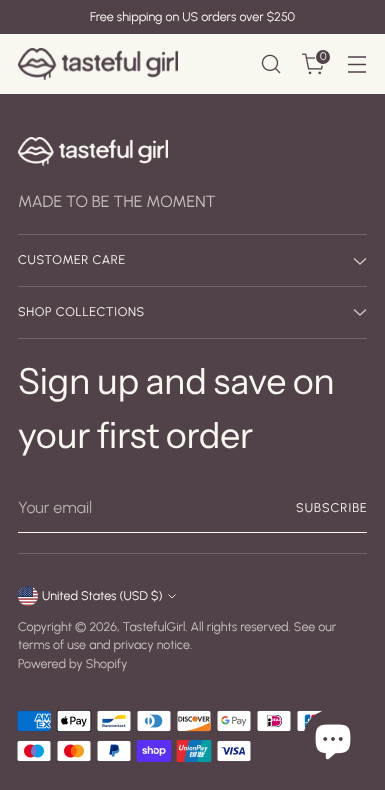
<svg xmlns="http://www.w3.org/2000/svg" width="385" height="790">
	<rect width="100%" height="100%" fill="#51424A" />
	<text x="90" y="21" font-family="Urbanist" font-size="12.55" fill="#F8F7F0">Free shipping on US orders over $250</text>
	<rect x="0" y="34" width="385" height="60" fill="#F8F7F0" />
	<image x="18" y="48" width="160" height="32" href="assets/img1.png" />
	<image x="261" y="54" width="20" height="20" href="assets/img2.png" />
	<image x="302" y="53" width="22" height="22" href="assets/img3.png" />
	<circle cx="323.5" cy="57.5" r="7.5" fill="none" stroke="#F8F7F0" stroke-width="2" />
	<circle cx="323" cy="57" r="7" fill="#51424A" />
	<text x="320" y="60" font-family="Urbanist" font-size="11" fill="#F8F7F0">0</text>
	<path d="M348 64.5H366M348 57H366M348 72H366" fill="none" stroke="#51424A" stroke-width="1.3" />
	<rect x="18" y="234" width="349" height="1" fill="#72666B" />
	<image x="18" y="137" width="150" height="29" href="assets/img4.png" />
	<text x="18" y="207" font-family="Urbanist" font-size="16.2" fill="#C6C1BE">MADE TO BE THE MOMENT</text>
	<rect x="18" y="286" width="349" height="1" fill="#72666B" />
	<text x="18" y="264" font-family="Urbanist" font-size="12.55" letter-spacing="0.6" fill="#F8F7F0">CUSTOMER CARE</text>
	<path d="M354 258.5L360 264L366 258.5M354 309.5L360 315L366 309.5" fill="none" stroke="#C6C1BE" stroke-width="1.6" />
	<rect x="18" y="338" width="349" height="1" fill="#72666B" />
	<text x="18" y="316" font-family="Urbanist" font-size="12.55" letter-spacing="0.6" fill="#F8F7F0">SHOP COLLECTIONS</text>
	<rect x="18" y="553" width="349" height="1" fill="#72666B" />
	<g font-family="Instrument Sans" font-size="36" letter-spacing="-0.5" fill="#F8F7F0">
		<text x="18" y="394">Sign up and save on</text>
		<text x="18" y="448">your first order</text>
	</g>
	<rect x="18" y="532" width="349" height="1" fill="#F8F7F0" />
	<text x="18" y="513" font-family="Urbanist" font-size="16.2" fill="#B5AFAE">Your email</text>
	<text x="296" y="512" font-family="Urbanist" font-size="12.55" letter-spacing="1" fill="#F8F7F0">SUBSCRIBE</text>
	<image x="18" y="586" width="20" height="20" href="assets/img5.png" />
	<text x="42" y="600" font-family="Urbanist" font-size="12.55" fill="#F8F7F0">United States (USD $)</text>
	<path d="M168.5 594.5L172 598L175.5 594.5" fill="none" stroke="#F8F7F0" stroke-width="0.9" />
	<g font-family="Urbanist" font-size="12.55" fill="#C6C1BE">
		<text x="18" y="631">Copyright © 2026, TastefulGirl. All rights reserved. See our</text>
		<text x="18" y="649">terms of use and privacy notice.</text>
		<text x="18" y="668">Powered by Shopify</text>
	</g>
	<image x="17" y="710" width="34" height="22" href="assets/img6.png" />
	<image x="56" y="710" width="36" height="22" href="assets/img7.png" />
	<image x="97" y="710" width="34" height="22" href="assets/img8.png" />
	<image x="137" y="710" width="34" height="22" href="assets/img9.png" />
	<image x="177" y="710" width="34" height="22" href="assets/img10.png" />
	<image x="217" y="710" width="34" height="22" href="assets/img11.png" />
	<image x="257" y="710" width="34" height="22" href="assets/img12.png" />
	<image x="297" y="710" width="29" height="22" href="assets/img13.png" />
	<image x="17" y="740" width="34" height="22" href="assets/img14.png" />
	<image x="57" y="740" width="34" height="22" href="assets/img15.png" />
	<image x="97" y="740" width="34" height="22" href="assets/img16.png" />
	<image x="136" y="740" width="36" height="22" href="assets/img17.png" />
	<image x="176" y="740" width="36" height="22" href="assets/img18.png" />
	<image x="217" y="740" width="34" height="22" href="assets/img19.png" />
	<circle cx="333" cy="739" r="30" fill="#51424A" />
	<image x="315" y="724" width="36" height="36" href="assets/img20.png" />
</svg>
